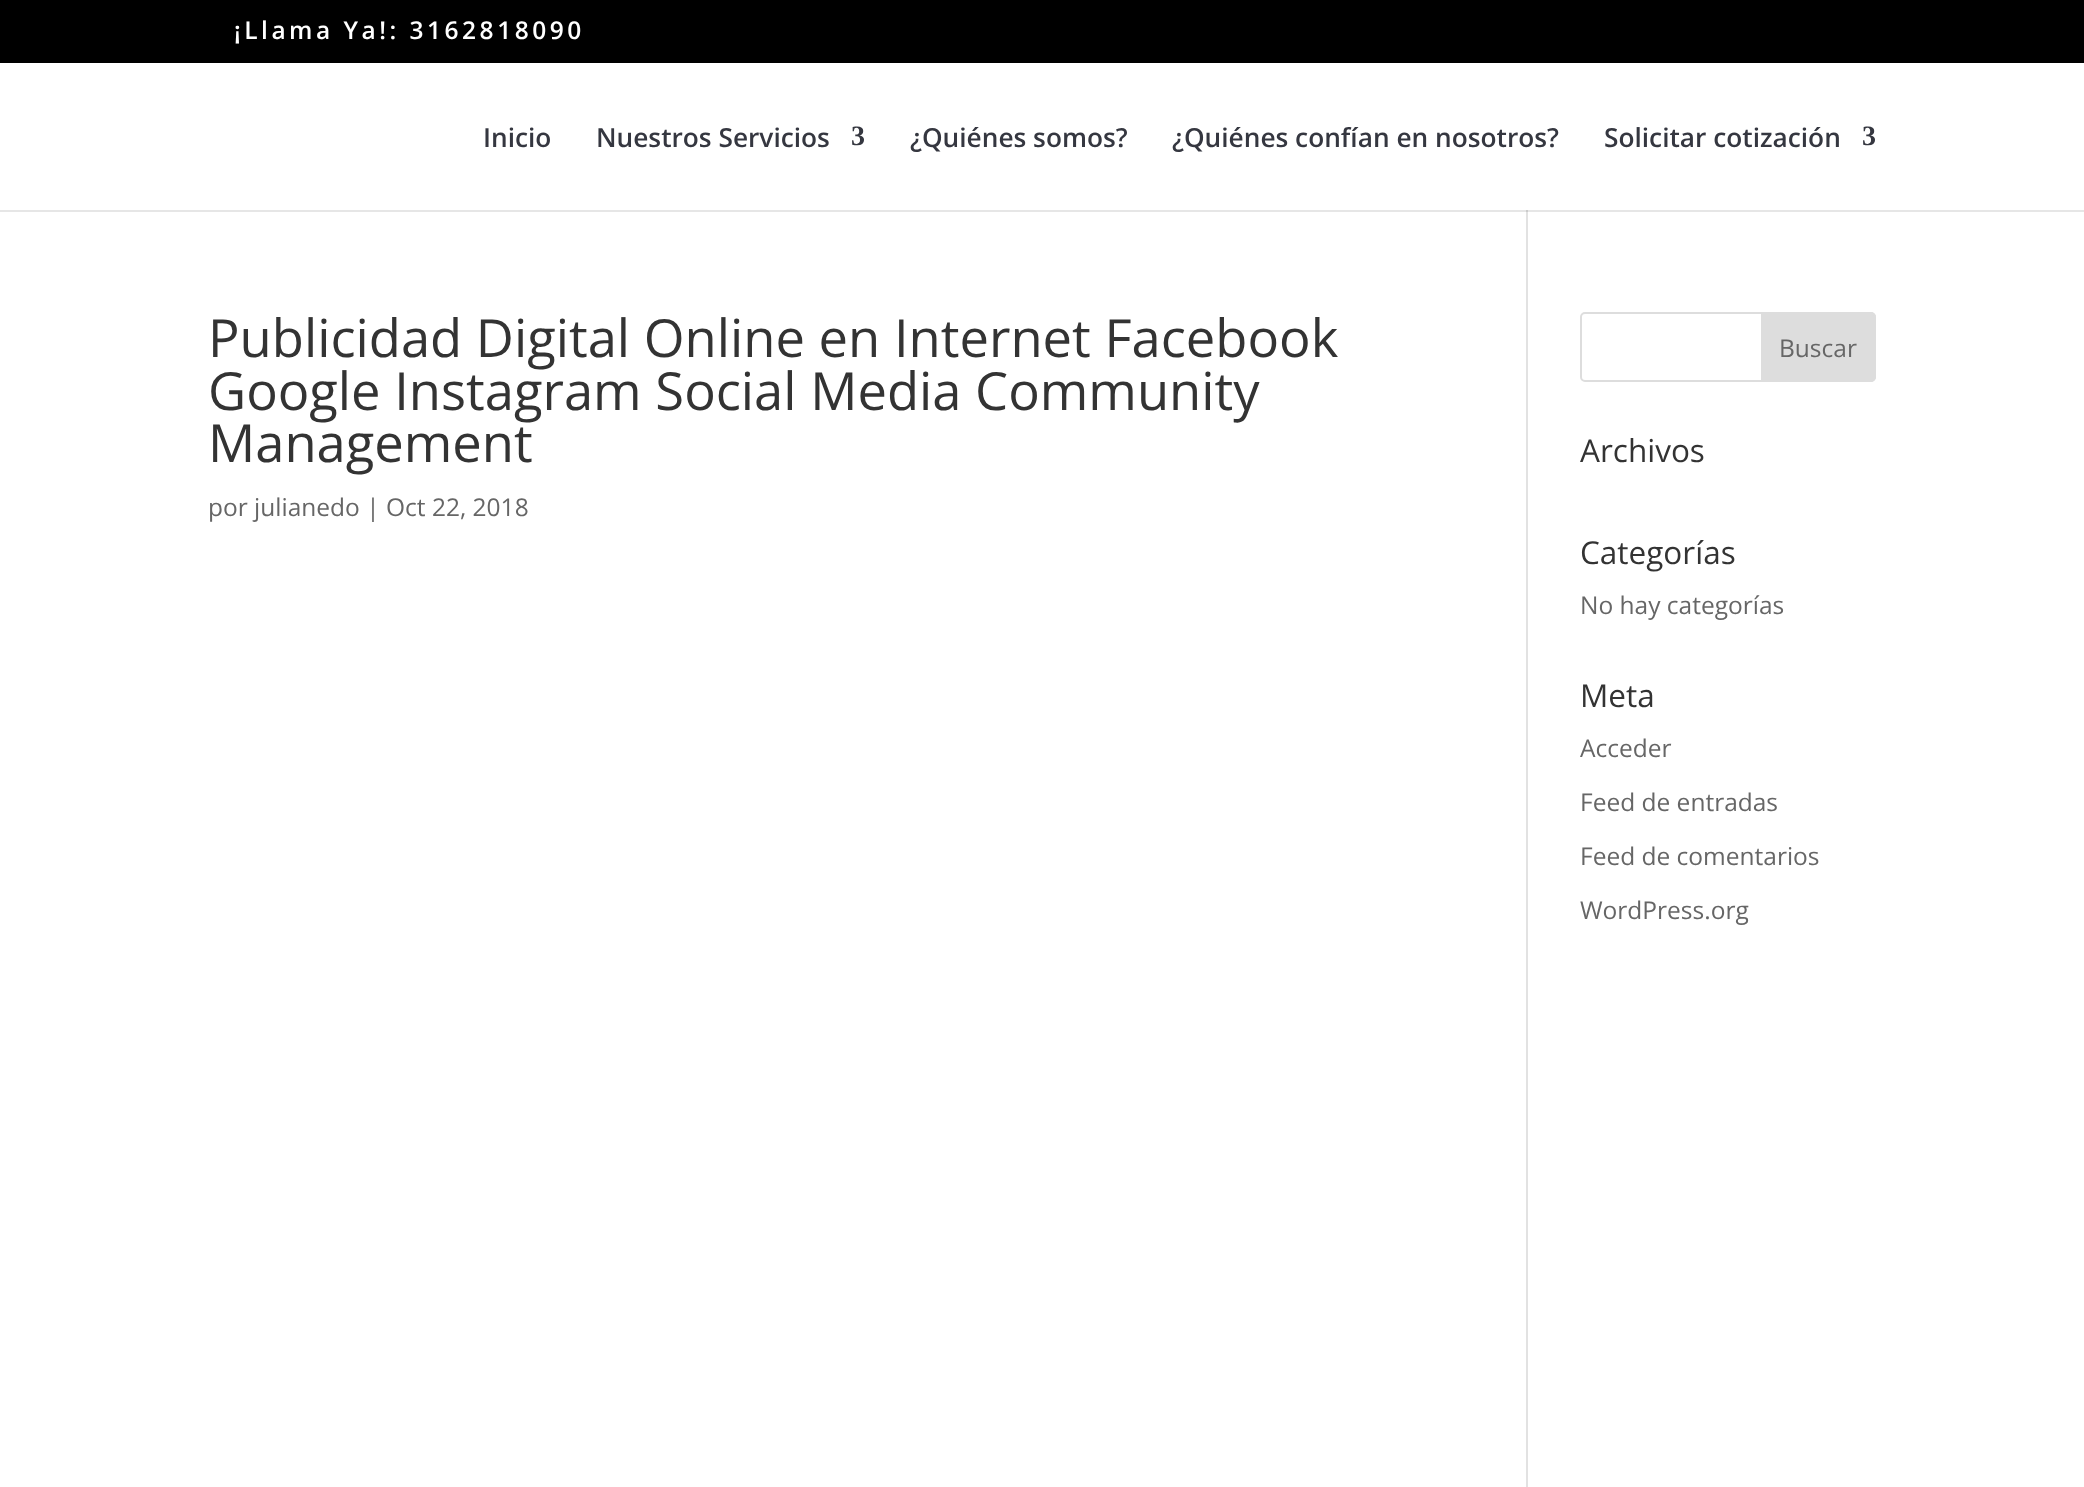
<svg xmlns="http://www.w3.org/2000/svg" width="2084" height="1487">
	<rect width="100%" height="100%" fill="#FFFFFF" />
	<rect x="0" y="210" width="2084" height="2" fill="#E6E6E6" />
	<rect x="0" y="0" width="2084" height="63" fill="#000000" />
	<text x="234" y="39" font-family="Open Sans" font-size="24.5" font-weight="600" letter-spacing="3.5" fill="#FFFFFF">¡Llama Ya!: 3162818090</text>
	<g font-family="Open Sans" font-size="26.25" font-weight="600" fill="#353740">
		<text x="483" y="147">Inicio</text>
		<text x="596" y="147">Nuestros Servicios</text>
	</g>
	<text x="851" y="145" font-family="Liberation Serif" font-size="28" font-weight="700" fill="#353740">3</text>
	<g font-family="Open Sans" font-size="26.25" font-weight="600" fill="#353740">
		<text x="910" y="147">¿Quiénes somos?</text>
		<text x="1172" y="147">¿Quiénes confían en nosotros?</text>
		<text x="1604" y="147">Solicitar cotización</text>
	</g>
	<text x="1862" y="145" font-family="Liberation Serif" font-size="28" font-weight="700" fill="#353740">3</text>
	<rect x="1526" y="210" width="2" height="1277" fill="#E2E2E2" />
	<rect x="1526" y="210" width="2" height="2" fill="#CBCBCB" />
	<g font-family="Open Sans" font-size="52.5" fill="#333333">
		<text x="208" y="357">Publicidad Digital Online en Internet Facebook</text>
		<text x="208" y="410">Google Instagram Social Media Community</text>
		<text x="208" y="462">Management</text>
	</g>
	<text x="208" y="516" font-family="Open Sans" font-size="24.5" fill="#666666">por julianedo | Oct 22, 2018</text>
	<rect x="1581" y="313" width="294" height="68" rx="4" fill="none" stroke="#DDDDDD" stroke-width="2" />
	<path d="M1762 313H1871C1873 313 1875 315 1875 317V377C1875 379 1873 381 1871 381H1762Z" fill="#DDDDDD" stroke="#DDDDDD" stroke-width="2" />
	<text x="1779" y="357" font-family="Open Sans" font-size="24.5" fill="#666666">Buscar</text>
	<g font-family="Open Sans" font-size="31.5" fill="#333333">
		<text x="1580" y="462">Archivos</text>
		<text x="1580" y="564">Categorías</text>
	</g>
	<text x="1580" y="614" font-family="Open Sans" font-size="24.5" fill="#666666">No hay categorías</text>
	<text x="1580" y="707" font-family="Open Sans" font-size="31.5" fill="#333333">Meta</text>
	<g font-family="Open Sans" font-size="24.5" fill="#666666">
		<text x="1580" y="757">Acceder</text>
		<text x="1580" y="811">Feed de entradas</text>
		<text x="1580" y="865">Feed de comentarios</text>
		<text x="1580" y="919">WordPress.org</text>
	</g>
</svg>
